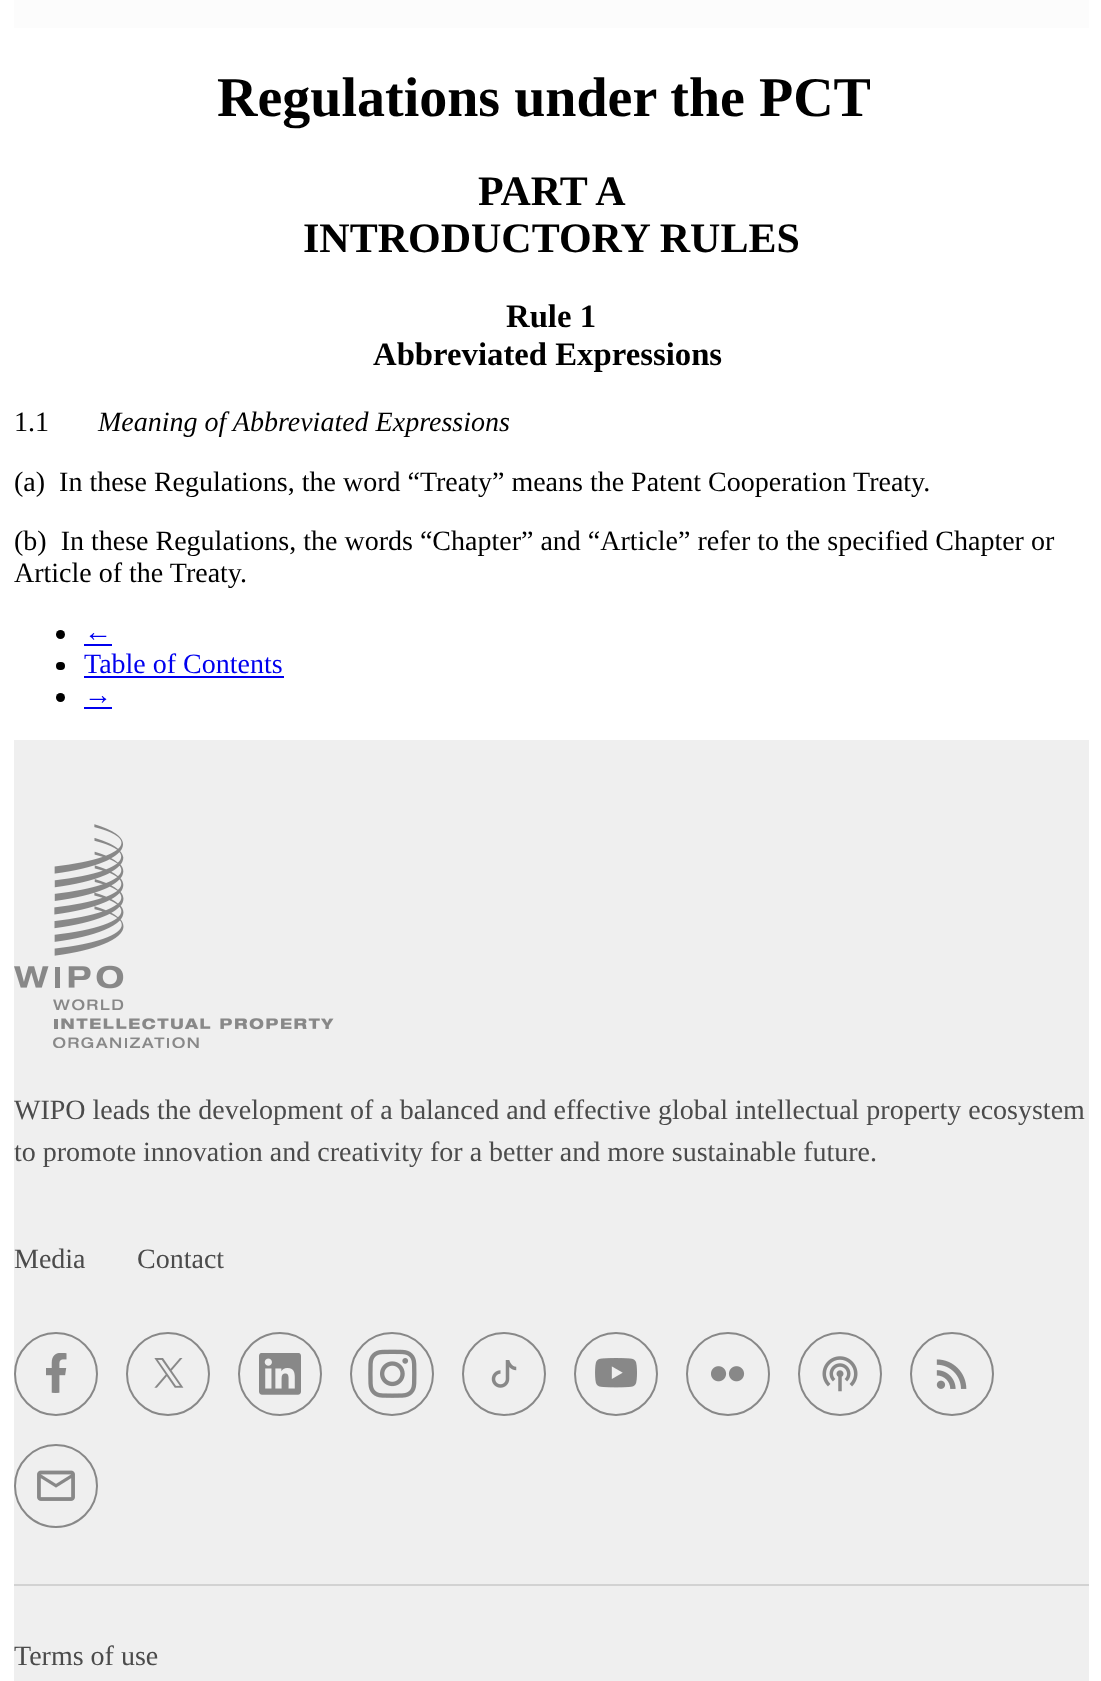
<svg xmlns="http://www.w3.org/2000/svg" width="1101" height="1681">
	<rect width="100%" height="100%" fill="#FFFFFF" />
	<rect x="14" y="0" width="1075" height="28" fill="#FCFCFC" />
	<text x="217" y="116" font-family="Liberation Serif" font-size="56" font-weight="700" fill="#000000">Regulations under the PCT</text>
	<g font-family="Liberation Serif" font-size="42" font-weight="700" fill="#000000">
		<text x="478" y="205">PART A</text>
		<text x="303" y="252">INTRODUCTORY RULES</text>
	</g>
	<g font-family="Liberation Serif" font-size="32.75" font-weight="700" fill="#000000">
		<text x="506" y="327">Rule 1</text>
		<text x="373" y="365">Abbreviated Expressions</text>
	</g>
	<text x="14" y="431" font-family="Liberation Serif" font-size="28" fill="#000000">1.1</text>
	<text x="98" y="431" font-family="Liberation Serif" font-size="28" font-style="italic" fill="#000000">Meaning of Abbreviated Expressions</text>
	<g font-family="Liberation Serif" font-size="28" fill="#000000">
		<text x="14" y="491" xml:space="preserve">(a)  In these Regulations, the word “Treaty” means the Patent Cooperation Treaty.</text>
		<text x="14" y="550" xml:space="preserve">(b)  In these Regulations, the words “Chapter” and “Article” refer to the specified Chapter or</text>
		<text x="14" y="582">Article of the Treaty.</text>
	</g>
	<circle cx="60.5" cy="634.5" r="4.5" fill="#000000" />
	<text x="84" y="641" font-family="Liberation Serif" font-size="28" fill="#0000EE">←</text>
	<rect x="84" y="644" width="28" height="2" fill="#0000EE" />
	<rect x="56" y="662" width="9" height="8" rx="4" fill="#000000" />
	<text x="84" y="673" font-family="Liberation Serif" font-size="28" fill="#0000EE">Table of Contents</text>
	<rect x="84" y="676" width="200" height="2" fill="#0000EE" />
	<circle cx="60.5" cy="697.5" r="4.5" fill="#000000" />
	<text x="84" y="704" font-family="Liberation Serif" font-size="28" fill="#0000EE">→</text>
	<rect x="84" y="707" width="28" height="2" fill="#0000EE" />
	<rect x="14" y="740" width="1075" height="941" fill="#EFEFEF" />
	<image x="14" y="824" width="320" height="224" href="assets/img1.png" />
	<g font-family="Liberation Serif" font-size="28" fill="#4B4B4B">
		<text x="14" y="1119">WIPO leads the development of a balanced and effective global intellectual property ecosystem</text>
		<text x="14" y="1161">to promote innovation and creativity for a better and more sustainable future.</text>
		<text x="14" y="1268">Media</text>
		<text x="137" y="1268">Contact</text>
	</g>
	<circle cx="56" cy="1374" r="41" fill="none" stroke="#888888" stroke-width="2" />
	<image x="46" y="1353" width="21" height="40" href="assets/img2.png" />
	<circle cx="168" cy="1374" r="41" fill="none" stroke="#888888" stroke-width="2" />
	<image x="154" y="1358" width="30" height="30" href="assets/img3.png" />
	<circle cx="280" cy="1374" r="41" fill="none" stroke="#888888" stroke-width="2" />
	<image x="259" y="1353" width="42" height="42" href="assets/img4.png" />
	<circle cx="392" cy="1374" r="41" fill="none" stroke="#888888" stroke-width="2" />
	<image x="368" y="1349" width="49" height="49" href="assets/img5.png" />
	<circle cx="504" cy="1374" r="41" fill="none" stroke="#888888" stroke-width="2" />
	<image x="491" y="1360" width="26" height="28" href="assets/img6.png" />
	<circle cx="616" cy="1374" r="41" fill="none" stroke="#888888" stroke-width="2" />
	<image x="595" y="1358" width="42" height="30" href="assets/img7.png" />
	<circle cx="728" cy="1374" r="41" fill="none" stroke="#888888" stroke-width="2" />
	<image x="711" y="1366" width="34" height="16" href="assets/img8.png" />
	<circle cx="840" cy="1374" r="41" fill="none" stroke="#888888" stroke-width="2" />
	<image x="822" y="1356" width="36" height="36" href="assets/img9.png" />
	<circle cx="952" cy="1374" r="41" fill="none" stroke="#888888" stroke-width="2" />
	<image x="936" y="1359" width="31" height="30" href="assets/img10.png" />
	<circle cx="56" cy="1486" r="41" fill="none" stroke="#888888" stroke-width="2" />
	<image x="37" y="1470" width="38" height="31" href="assets/img11.png" />
	<rect x="14" y="1584" width="1075" height="2" fill="#D2D2D2" />
	<text x="14" y="1665" font-family="Liberation Serif" font-size="28" fill="#4B4B4B">Terms of use</text>
</svg>
